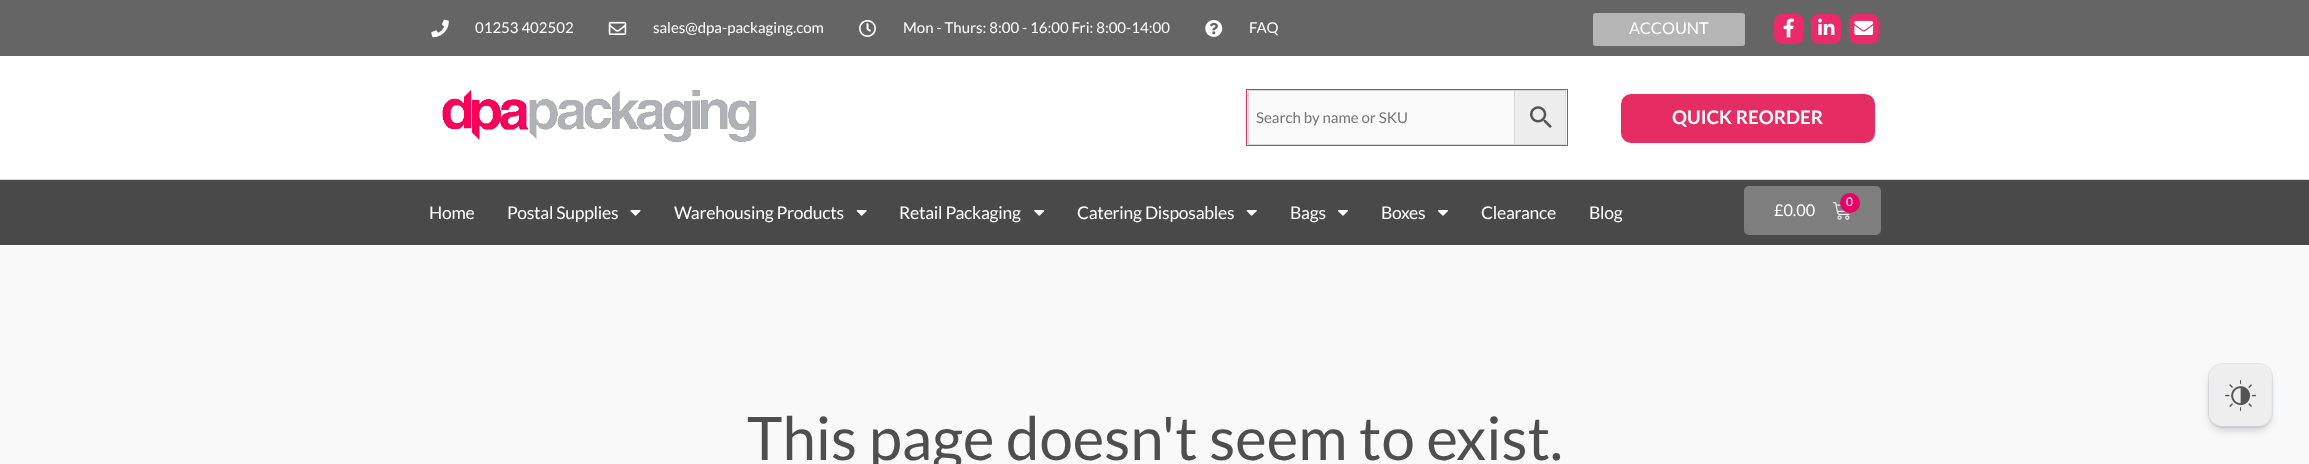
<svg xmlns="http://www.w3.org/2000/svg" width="2309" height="464">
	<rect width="100%" height="100%" fill="#F9F9F9" />
	<rect x="0" y="0" width="2309" height="56" fill="#656565" />
	<image x="431" y="19" width="18" height="19" href="assets/img1.png" />
	<text x="475" y="33" font-family="Lato" font-size="15" fill="#FFFFFF">01253 402502</text>
	<image x="608" y="21" width="19" height="14" href="assets/img2.png" />
	<text x="653" y="33" font-family="Lato" font-size="15" fill="#FFFFFF">sales@dpa-packaging.com</text>
	<image x="859" y="20" width="17" height="17" href="assets/img3.png" />
	<text x="903" y="33" font-family="Lato" font-size="15" fill="#FFFFFF">Mon - Thurs: 8:00 - 16:00 Fri: 8:00-14:00</text>
	<image x="1205" y="20" width="18" height="17" href="assets/img4.png" />
	<text x="1249" y="33" font-family="Lato" font-size="15" fill="#FFFFFF">FAQ</text>
	<rect x="1593" y="13" width="152" height="33" rx="2.5" fill="#B5B5B5" />
	<text x="1629" y="34" font-family="Lato" font-size="16.25" fill="#FFFFFF">ACCOUNT</text>
	<rect x="1774" y="14" width="30" height="30" rx="8" fill="#EA2A6A" />
	<image x="1783" y="18" width="11" height="20" href="assets/img5.png" />
	<rect x="1811" y="14" width="30" height="30" rx="8" fill="#EA2A6A" />
	<image x="1818" y="18" width="17" height="17" href="assets/img6.png" />
	<rect x="1849" y="14" width="30" height="30" rx="8" fill="#EA2A6A" />
	<image x="1854" y="20" width="20" height="15" href="assets/img7.png" />
	<rect x="0" y="56" width="2309" height="123" fill="#FFFFFF" />
	<rect x="0" y="179" width="2309" height="1" fill="#D8D8D8" />
	<image x="442" y="90" width="315" height="52" href="assets/img8.png" />
	<rect x="1246.5" y="89.5" width="321" height="56" fill="none" stroke="#E52D64" />
	<rect x="1514.5" y="90.5" width="51" height="54" fill="#EDEDED" stroke="#D8D8D8" />
	<rect x="1248.5" y="90.5" width="266" height="54" fill="#FAFAFA" stroke="#D8D8D8" />
	<text x="1256" y="123" font-family="Lato" font-size="15" fill="#757575">Search by name or SKU</text>
	<image x="1530" y="106" width="22" height="22" href="assets/img9.png" />
	<rect x="1621" y="94" width="254" height="49" rx="10" fill="#E52D64" />
	<text x="1672" y="124" font-family="Lato" font-size="18.75" font-weight="700" fill="#FFFFFF">QUICK REORDER</text>
	<rect x="0" y="180" width="2309" height="65" fill="#494949" />
	<g font-family="Lato" font-size="17.5" letter-spacing="-0.25" fill="#FFFFFF">
		<text x="429" y="219">Home</text>
		<text x="507" y="219">Postal Supplies</text>
	</g>
	<image x="630" y="210" width="11" height="6" href="assets/img10.png" />
	<text x="674" y="219" font-family="Lato" font-size="17.5" letter-spacing="-0.25" fill="#FFFFFF">Warehousing Products</text>
	<image x="856" y="210" width="11" height="6" href="assets/img11.png" />
	<text x="899" y="219" font-family="Lato" font-size="17.5" letter-spacing="-0.25" fill="#FFFFFF">Retail Packaging</text>
	<image x="1034" y="210" width="11" height="6" href="assets/img12.png" />
	<text x="1077" y="219" font-family="Lato" font-size="17.5" letter-spacing="-0.25" fill="#FFFFFF">Catering Disposables</text>
	<image x="1246" y="210" width="11" height="6" href="assets/img11.png" />
	<text x="1290" y="219" font-family="Lato" font-size="17.5" letter-spacing="-0.25" fill="#FFFFFF">Bags</text>
	<image x="1337" y="210" width="11" height="6" href="assets/img13.png" />
	<text x="1381" y="219" font-family="Lato" font-size="17.5" letter-spacing="-0.25" fill="#FFFFFF">Boxes</text>
	<image x="1437" y="210" width="11" height="6" href="assets/img13.png" />
	<g font-family="Lato" font-size="17.5" letter-spacing="-0.25" fill="#FFFFFF">
		<text x="1481" y="219">Clearance</text>
		<text x="1589" y="219">Blog</text>
	</g>
	<rect x="1744" y="186" width="137" height="49" rx="5" fill="#7E7E7E" />
	<image x="1832" y="202" width="18" height="18" href="assets/img14.png" />
	<circle cx="1850" cy="203" r="10" fill="#E80064" />
	<text x="1846" y="206" font-family="Lato" font-size="12" fill="#FFFFFF">0</text>
	<text x="1774" y="216" font-family="Lato" font-size="16.25" fill="#FFFFFF">£0.00</text>
	<text x="747" y="460" font-family="Lato" font-size="60" fill="#4E4E4E">This page doesn't seem to exist.</text>
	<rect x="2208.5" y="363.5" width="64" height="64" rx="13.5" fill="none" stroke="#E6E7EA" />
	<rect x="2211" y="371" width="58" height="58" rx="10" fill="#091E42" fill-opacity="0.25" filter="blur(5px)" />
	<rect x="2209" y="364" width="62" height="62" rx="13" fill="#EEEEEE" />
	<image x="2225" y="380" width="31" height="31" href="assets/img15.png" />
</svg>
